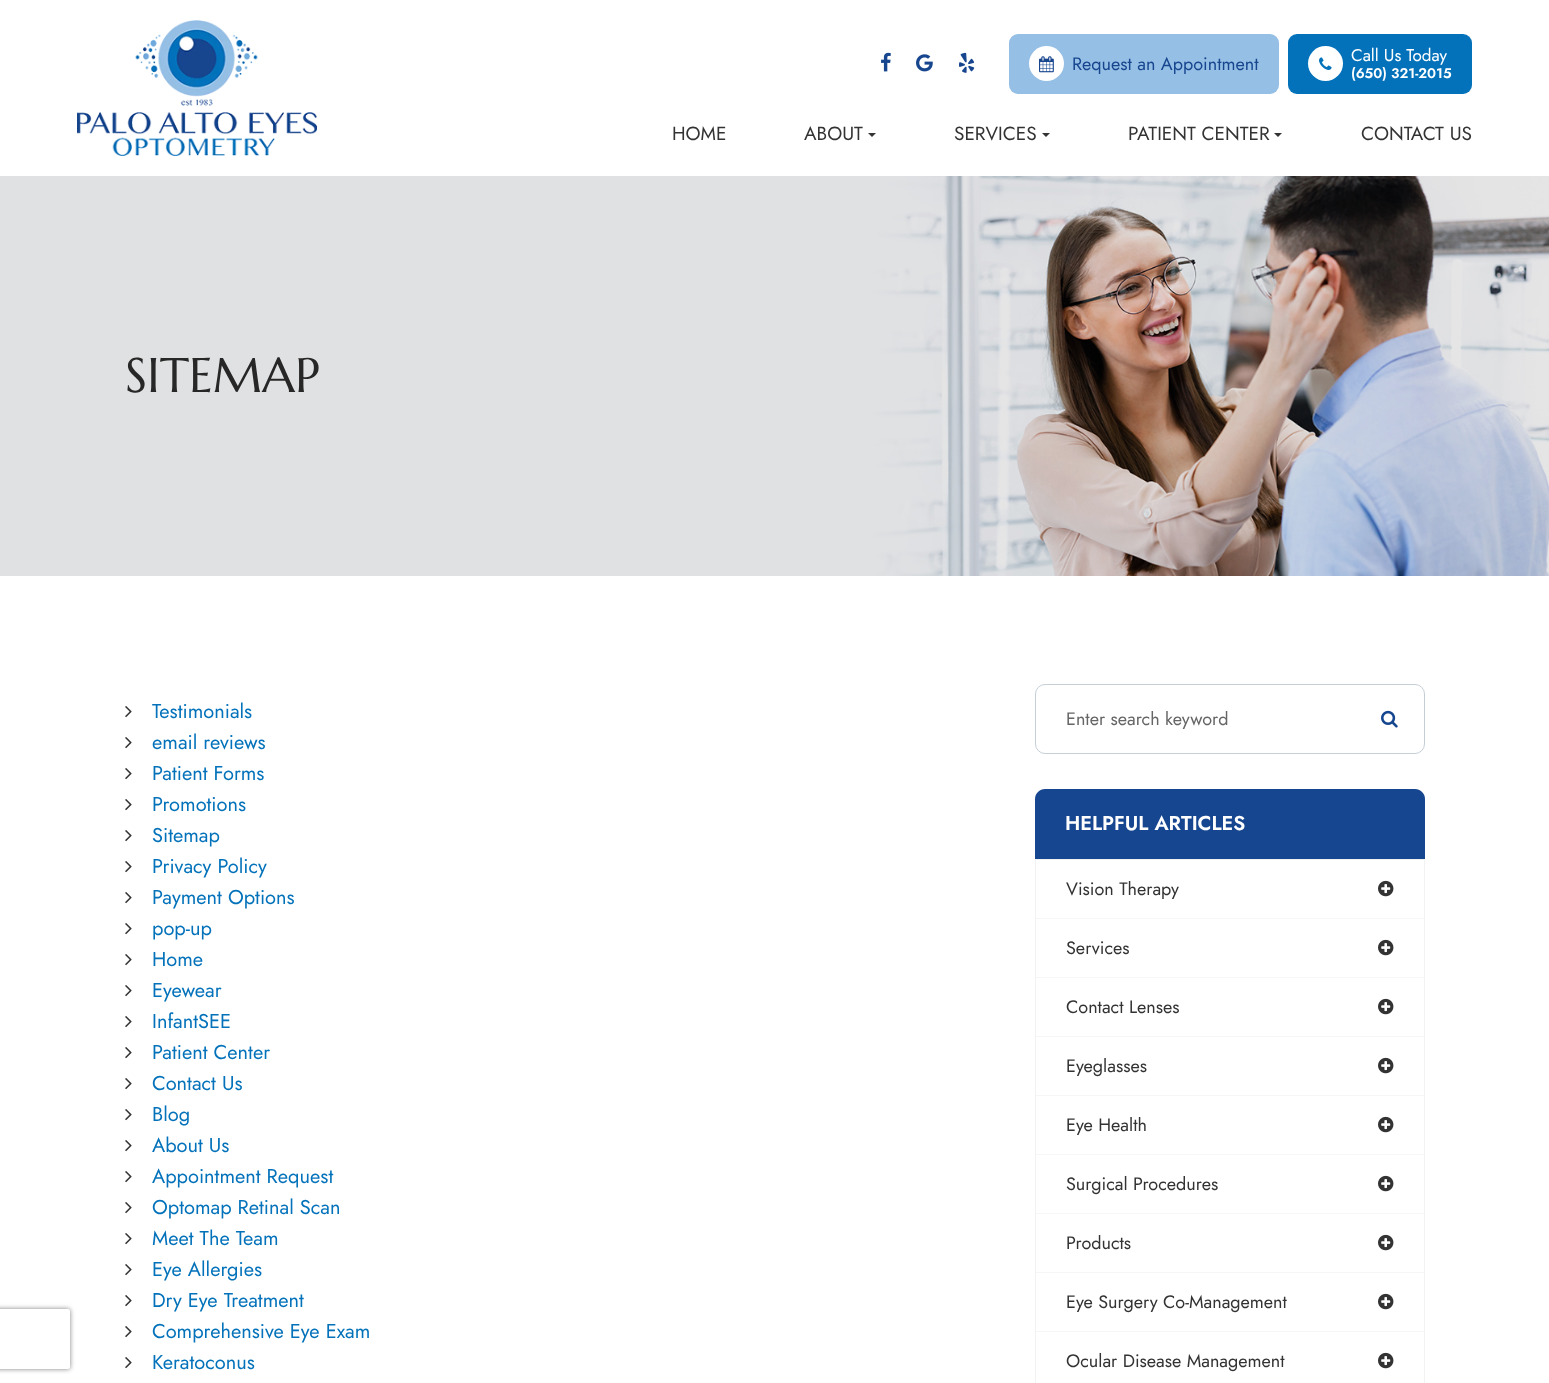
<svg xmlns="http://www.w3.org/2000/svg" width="1549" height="1383">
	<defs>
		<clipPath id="clip1"><path d="M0 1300H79V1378H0ZM-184 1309H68C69 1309 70 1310 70 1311V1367C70 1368 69 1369 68 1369H-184C-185 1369-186 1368-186 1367V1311C-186 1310-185 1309-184 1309Z" clip-rule="evenodd" /></clipPath>
	</defs>
	<rect width="100%" height="100%" fill="#FFFFFF" />
	<image x="77" y="20" width="240" height="136" href="assets/img1.png" />
	<image x="881" y="52" width="10" height="20" href="assets/img2.png" />
	<image x="916" y="54" width="17" height="18" href="assets/img3.png" />
	<image x="959" y="52" width="16" height="21" href="assets/img4.png" />
	<rect x="1009" y="34" width="270" height="60" rx="9" fill="#95BFE5" />
	<circle cx="1046.5" cy="63.5" r="17.5" fill="#FFFFFF" />
	<image x="1039" y="56" width="15" height="17" href="assets/img5.png" />
	<text x="1072" y="70" font-family="Jost" font-size="18" fill="#17468F">Request an Appointment</text>
	<rect x="1288" y="34" width="184" height="60" rx="9" fill="#0372BA" />
	<circle cx="1325.5" cy="63.5" r="17.5" fill="#FFFFFF" />
	<image x="1319" y="57" width="13" height="13" href="assets/img6.png" />
	<text x="1351" y="61" font-family="Jost" font-size="17" fill="#FFFFFF">Call Us Today</text>
	<text x="1351" y="78" font-family="Jost" font-size="14" font-weight="600" fill="#FFFFFF">(650) 321-2015</text>
	<g font-family="Jost" font-size="19" fill="#333333">
		<text x="672" y="140">HOME</text>
		<text x="804" y="140">ABOUT</text>
	</g>
	<path d="M868 133H876L872 137Z" fill="#333333" />
	<text x="954" y="140" font-family="Jost" font-size="19" fill="#333333">SERVICES</text>
	<path d="M1042 133H1050L1046 137Z" fill="#333333" />
	<text x="1128" y="140" font-family="Jost" font-size="19" fill="#333333">PATIENT CENTER</text>
	<path d="M1274 133H1282L1278 137Z" fill="#333333" />
	<text x="1361" y="140" font-family="Jost" font-size="19" fill="#333333">CONTACT US</text>
	<image x="0" y="176" width="1549" height="400" href="assets/img7.png" />
	<text x="125" y="392" font-family="Marcellus" font-size="48.5" fill="#272727">SITEMAP</text>
	<g clip-path="url(#clip1)">
		<rect x="-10" y="1309" width="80" height="60" rx="2" fill="#808080" filter="blur(2.5px)" />
	</g>
	<image x="125" y="706" width="7" height="12" href="assets/img8.png" />
	<text x="152" y="718" font-family="Jost" font-size="20" fill="#0372BA">Testimonials</text>
	<image x="125" y="737" width="7" height="12" href="assets/img8.png" />
	<text x="152" y="749" font-family="Jost" font-size="20" fill="#0372BA">email reviews</text>
	<image x="125" y="768" width="7" height="12" href="assets/img8.png" />
	<text x="152" y="780" font-family="Jost" font-size="20" fill="#0372BA">Patient Forms</text>
	<image x="125" y="799" width="7" height="12" href="assets/img8.png" />
	<text x="152" y="811" font-family="Jost" font-size="20" fill="#0372BA">Promotions</text>
	<image x="125" y="830" width="7" height="12" href="assets/img8.png" />
	<text x="152" y="842" font-family="Jost" font-size="20" fill="#0372BA">Sitemap</text>
	<image x="125" y="861" width="7" height="12" href="assets/img8.png" />
	<text x="152" y="873" font-family="Jost" font-size="20" fill="#0372BA">Privacy Policy</text>
	<image x="125" y="892" width="7" height="12" href="assets/img8.png" />
	<text x="152" y="904" font-family="Jost" font-size="20" fill="#0372BA">Payment Options</text>
	<image x="125" y="923" width="7" height="12" href="assets/img8.png" />
	<text x="152" y="935" font-family="Jost" font-size="20" fill="#0372BA">pop-up</text>
	<image x="125" y="954" width="7" height="12" href="assets/img8.png" />
	<text x="152" y="966" font-family="Jost" font-size="20" fill="#0372BA">Home</text>
	<image x="125" y="985" width="7" height="12" href="assets/img8.png" />
	<text x="152" y="997" font-family="Jost" font-size="20" fill="#0372BA">Eyewear</text>
	<image x="125" y="1016" width="7" height="12" href="assets/img8.png" />
	<text x="152" y="1028" font-family="Jost" font-size="20" fill="#0372BA">InfantSEE</text>
	<image x="125" y="1047" width="7" height="12" href="assets/img8.png" />
	<text x="152" y="1059" font-family="Jost" font-size="20" fill="#0372BA">Patient Center</text>
	<image x="125" y="1078" width="7" height="12" href="assets/img8.png" />
	<text x="152" y="1090" font-family="Jost" font-size="20" fill="#0372BA">Contact Us</text>
	<image x="125" y="1109" width="7" height="12" href="assets/img8.png" />
	<text x="152" y="1121" font-family="Jost" font-size="20" fill="#0372BA">Blog</text>
	<image x="125" y="1140" width="7" height="12" href="assets/img8.png" />
	<text x="152" y="1152" font-family="Jost" font-size="20" fill="#0372BA">About Us</text>
	<image x="125" y="1171" width="7" height="12" href="assets/img8.png" />
	<text x="152" y="1183" font-family="Jost" font-size="20" fill="#0372BA">Appointment Request</text>
	<image x="125" y="1202" width="7" height="12" href="assets/img8.png" />
	<text x="152" y="1214" font-family="Jost" font-size="20" fill="#0372BA">Optomap Retinal Scan</text>
	<image x="125" y="1233" width="7" height="12" href="assets/img8.png" />
	<text x="152" y="1245" font-family="Jost" font-size="20" fill="#0372BA">Meet The Team</text>
	<image x="125" y="1264" width="7" height="12" href="assets/img8.png" />
	<text x="152" y="1276" font-family="Jost" font-size="20" fill="#0372BA">Eye Allergies</text>
	<image x="125" y="1295" width="7" height="12" href="assets/img8.png" />
	<text x="152" y="1307" font-family="Jost" font-size="20" fill="#0372BA">Dry Eye Treatment</text>
	<image x="125" y="1326" width="7" height="12" href="assets/img8.png" />
	<text x="152" y="1338" font-family="Jost" font-size="20" fill="#0372BA">Comprehensive Eye Exam</text>
	<image x="125" y="1357" width="7" height="12" href="assets/img8.png" />
	<text x="152" y="1369" font-family="Jost" font-size="20" fill="#0372BA">Keratoconus</text>
	<rect x="1035.5" y="684.5" width="389" height="69" rx="9.5" fill="none" stroke="#C6CFD6" />
	<text x="1066" y="725" font-family="Jost" font-size="18" fill="#666666">Enter search keyword</text>
	<image x="1381" y="710" width="17" height="18" href="assets/img9.png" />
	<path d="M1045 789H1415C1420.5 789 1425 793.5 1425 799V859H1035V799C1035 793.5 1039.5 789 1045 789Z" fill="#16468F" />
	<text x="1065" y="830" font-family="Jost" font-size="20" font-weight="600" fill="#FFFFFF">HELPFUL ARTICLES</text>
	<rect x="1035.5" y="859.5" width="389" height="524" fill="none" stroke="#F2F2F2" />
	<rect x="1036" y="918" width="388" height="1" fill="#F4F6F8" />
	<text x="1066" y="895" font-family="Jost" font-size="18" fill="#333333">Vision Therapy</text>
	<image x="1378" y="880" width="16" height="17" href="assets/img10.png" />
	<rect x="1036" y="977" width="388" height="1" fill="#F4F6F8" />
	<text x="1066" y="954" font-family="Jost" font-size="18" fill="#333333">Services</text>
	<image x="1378" y="939" width="16" height="17" href="assets/img10.png" />
	<rect x="1036" y="1036" width="388" height="1" fill="#F4F6F8" />
	<text x="1066" y="1013" font-family="Jost" font-size="18" fill="#333333">Contact Lenses</text>
	<image x="1378" y="998" width="16" height="17" href="assets/img10.png" />
	<rect x="1036" y="1095" width="388" height="1" fill="#F4F6F8" />
	<text x="1066" y="1072" font-family="Jost" font-size="18" fill="#333333">Eyeglasses</text>
	<image x="1378" y="1057" width="16" height="17" href="assets/img10.png" />
	<rect x="1036" y="1154" width="388" height="1" fill="#F4F6F8" />
	<text x="1066" y="1131" font-family="Jost" font-size="18" fill="#333333">Eye Health</text>
	<image x="1378" y="1116" width="16" height="17" href="assets/img10.png" />
	<rect x="1036" y="1213" width="388" height="1" fill="#F4F6F8" />
	<text x="1066" y="1190" font-family="Jost" font-size="18" fill="#333333">Surgical Procedures</text>
	<image x="1378" y="1175" width="16" height="17" href="assets/img10.png" />
	<rect x="1036" y="1272" width="388" height="1" fill="#F4F6F8" />
	<text x="1066" y="1249" font-family="Jost" font-size="18" fill="#333333">Products</text>
	<image x="1378" y="1234" width="16" height="17" href="assets/img10.png" />
	<rect x="1036" y="1331" width="388" height="1" fill="#F4F6F8" />
	<text x="1066" y="1308" font-family="Jost" font-size="18" fill="#333333">Eye Surgery Co-Management</text>
	<image x="1378" y="1293" width="16" height="17" href="assets/img10.png" />
	<text x="1066" y="1367" font-family="Jost" font-size="18" fill="#333333">Ocular Disease Management</text>
	<image x="1378" y="1352" width="16" height="17" href="assets/img10.png" />
</svg>
